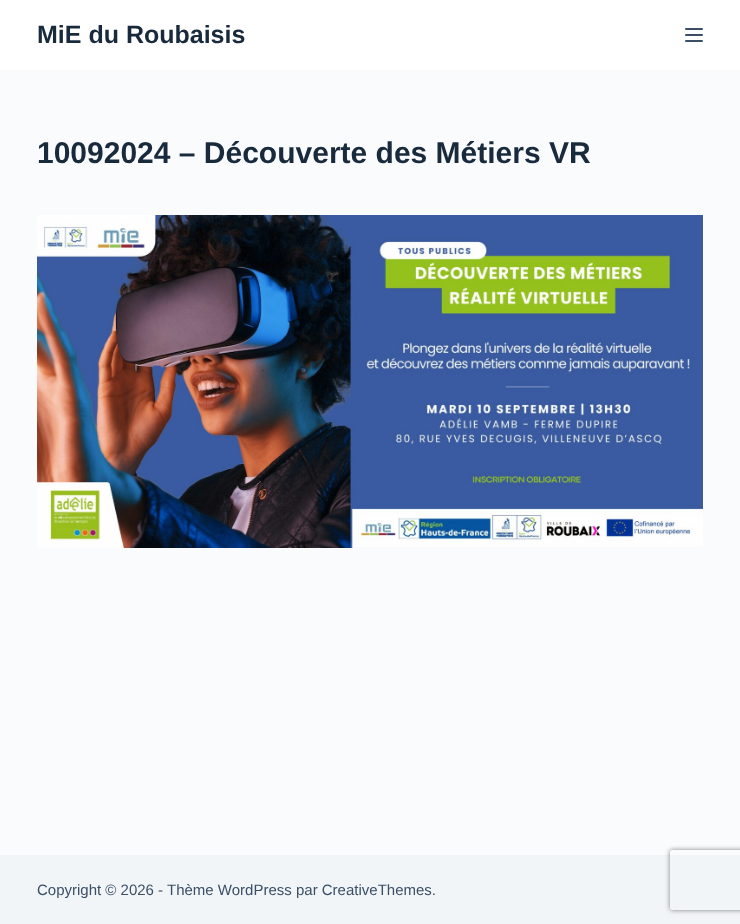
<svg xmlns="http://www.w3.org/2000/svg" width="740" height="924">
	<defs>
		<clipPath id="clip1"><path d="M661 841H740V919H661ZM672 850H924C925 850 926 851 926 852V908C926 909 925 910 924 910H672C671 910 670 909 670 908V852C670 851 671 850 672 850Z" clip-rule="evenodd" /></clipPath>
	</defs>
	<rect width="100%" height="100%" fill="#FAFBFC" />
	<rect x="0" y="0" width="740" height="70" fill="#FFFFFF" />
	<text x="37" y="43" font-family="Liberation Sans" font-size="25" font-weight="700" fill="#192A3D">MiE du Roubaisis</text>
	<rect x="685" y="28" width="18" height="2" rx="1" fill="#3A4F66" />
	<rect x="685" y="34" width="18" height="2" rx="1" fill="#3A4F66" />
	<rect x="685" y="40" width="18" height="2" rx="1" fill="#3A4F66" />
	<text x="37" y="163" font-family="Liberation Sans" font-size="30" font-weight="700" fill="#192A3D">10092024 – Découverte des Métiers VR</text>
	<image x="37" y="215" width="666" height="333" href="assets/img1.png" />
	<rect x="0" y="855" width="740" height="69" fill="#F2F5F7" />
	<text x="37" y="895" font-family="Liberation Sans" font-size="15" fill="#3A4F66">Copyright © 2026 - Thème WordPress par CreativeThemes.</text>
	<g clip-path="url(#clip1)">
		<rect x="670" y="850" width="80" height="60" rx="2" fill="#808080" filter="blur(2.5px)" />
	</g>
</svg>
